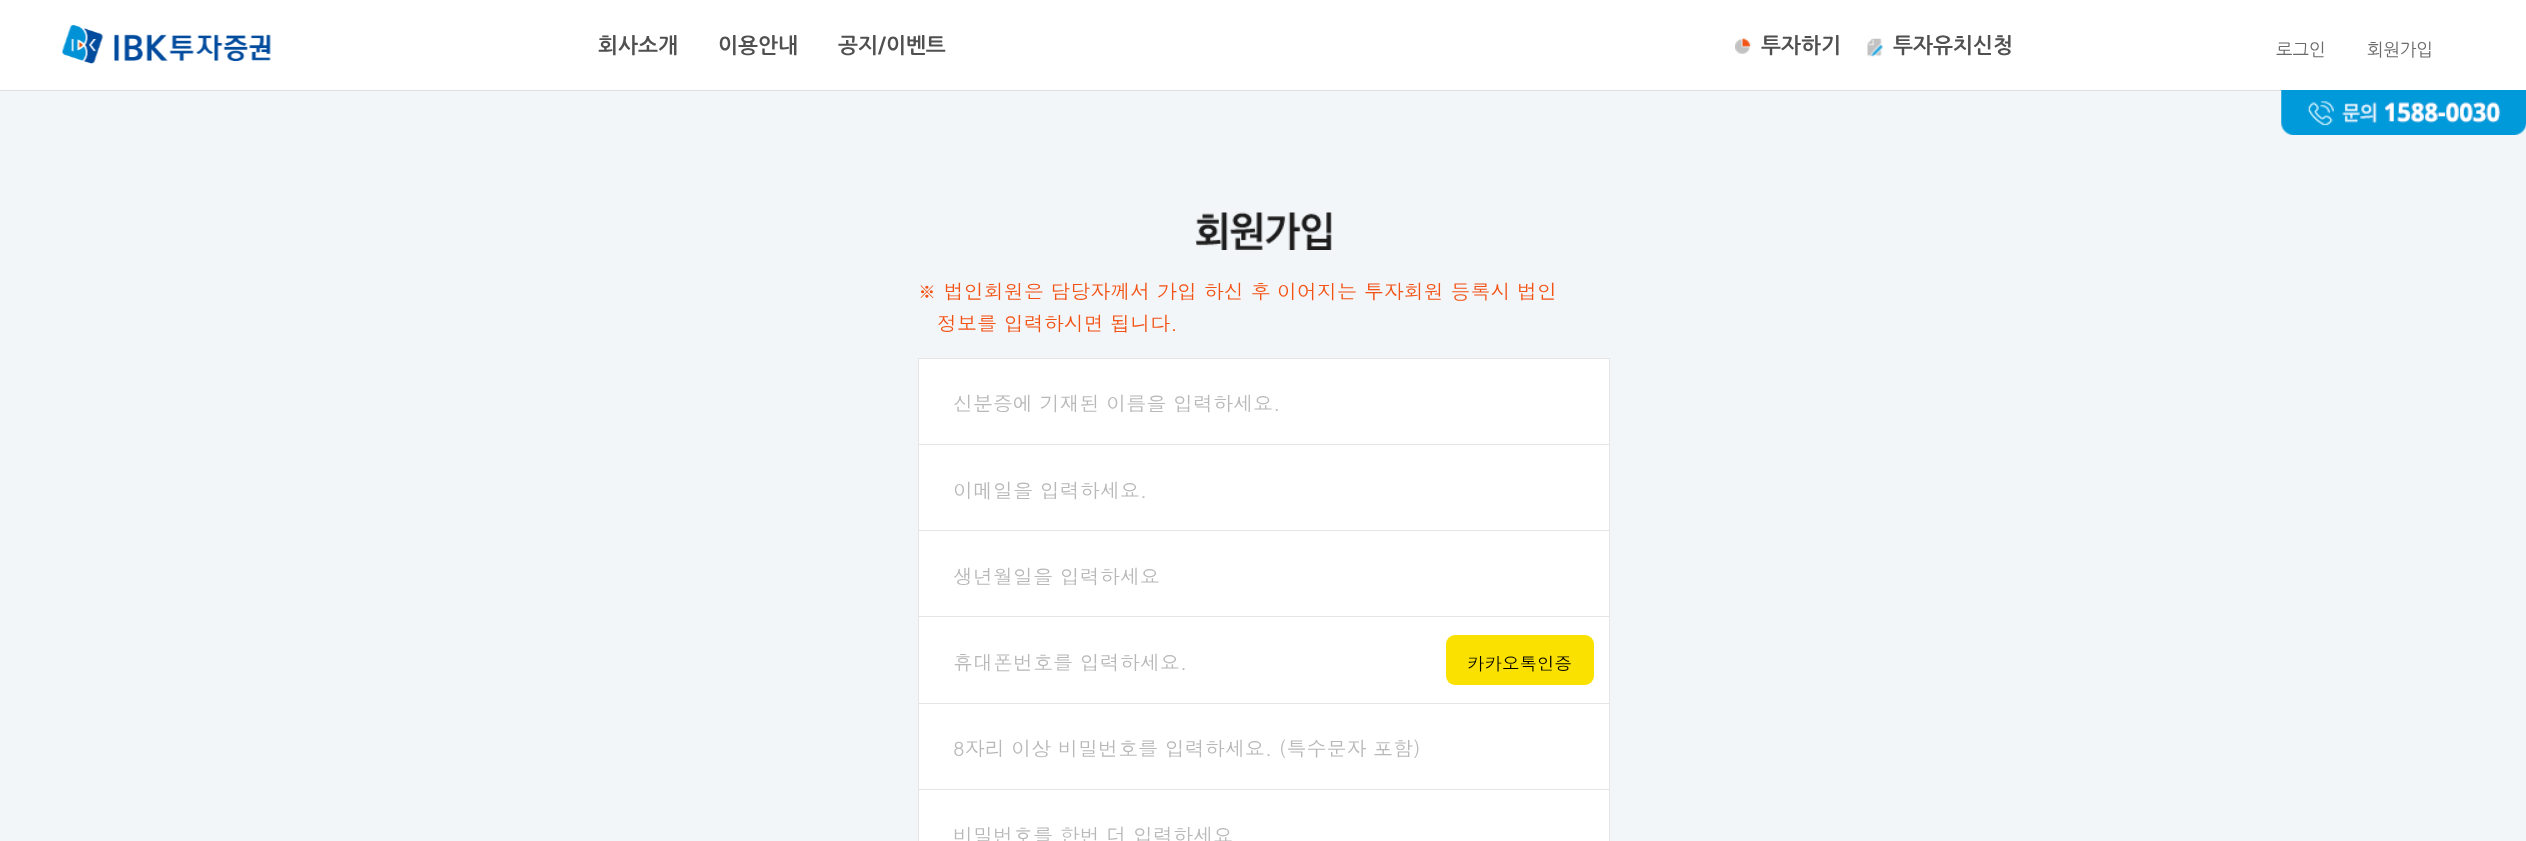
<svg xmlns="http://www.w3.org/2000/svg" width="2526" height="841">
	<rect width="100%" height="100%" fill="#F3F6F8" />
	<rect x="0" y="0" width="2526" height="90" fill="#FFFFFF" />
	<rect x="0" y="90" width="2282" height="1" fill="#E1E0E0" />
	<image x="62" y="25" width="209" height="39" href="assets/img1.png" />
	<g font-family="NanumGothic" font-size="21.25" font-weight="700" fill="#505050">
		<text x="598" y="53">회사소개</text>
		<text x="718" y="53">이용안내</text>
		<text x="838" y="53">공지/이벤트</text>
	</g>
	<image x="1735" y="38" width="16" height="16" href="assets/img2.png" />
	<text x="1761" y="53" font-family="NanumGothic" font-size="21.25" font-weight="700" fill="#505050">투자하기</text>
	<image x="1867" y="38" width="16" height="19" href="assets/img3.png" />
	<text x="1893" y="53" font-family="NanumGothic" font-size="21.25" font-weight="700" fill="#505050">투자유치신청</text>
	<g font-family="NanumGothic" font-size="17.5" fill="#6A6A6A">
		<text x="2276" y="56">로그인</text>
		<text x="2367" y="56">회원가입</text>
	</g>
	<image x="2281" y="90" width="245" height="45" href="assets/img4.png" />
	<image x="1195" y="212" width="137" height="38" href="assets/img5.png" />
	<g font-family="Dotum" font-size="20" fill="#F25214">
		<text x="917" y="299">※ 법인회원은 담당자께서 가입 하신 후 이어지는 투자회원 등록시 법인</text>
		<text x="937" y="331">정보를 입력하시면 됩니다.</text>
	</g>
	<rect x="918" y="358" width="692" height="1" fill="#E6E5E5" />
	<rect x="1609" y="358" width="1" height="483" fill="#E6E5E5" />
	<rect x="918" y="358" width="1" height="483" fill="#E6E5E5" />
	<rect x="919" y="359" width="690" height="85" fill="#FFFFFF" />
	<rect x="919" y="444" width="690" height="1" fill="#E6E5E5" />
	<text x="953" y="411" font-family="Dotum" font-size="20" fill="#B8B8B8">신분증에 기재된 이름을 입력하세요.</text>
	<rect x="919" y="445" width="690" height="85" fill="#FFFFFF" />
	<rect x="919" y="530" width="690" height="1" fill="#E6E5E5" />
	<text x="953" y="498" font-family="Dotum" font-size="20" fill="#B8B8B8">이메일을 입력하세요.</text>
	<rect x="919" y="531" width="690" height="172" fill="#FFFFFF" />
	<rect x="919" y="616" width="690" height="1" fill="#E6E5E5" />
	<text x="953" y="584" font-family="Dotum" font-size="20" fill="#B8B8B8">생년월일을 입력하세요</text>
	<rect x="919" y="703" width="690" height="1" fill="#E6E5E5" />
	<text x="953" y="670" font-family="Dotum" font-size="20" fill="#B8B8B8">휴대폰번호를 입력하세요.</text>
	<rect x="1446" y="635" width="148" height="50" rx="9" fill="#FAE100" />
	<text x="1467" y="670" font-family="Dotum" font-size="17.5" fill="#000000">카카오톡인증</text>
	<rect x="919" y="704" width="690" height="85" fill="#FFFFFF" />
	<rect x="919" y="789" width="690" height="1" fill="#E6E5E5" />
	<text x="953" y="756" font-family="Dotum" font-size="20" fill="#B8B8B8">8자리 이상 비밀번호를 입력하세요. (특수문자 포함)</text>
	<rect x="919" y="790" width="690" height="51" fill="#FFFFFF" />
	<text x="953" y="843" font-family="Dotum" font-size="20" fill="#B8B8B8">비밀번호를 한번 더 입력하세요</text>
</svg>
